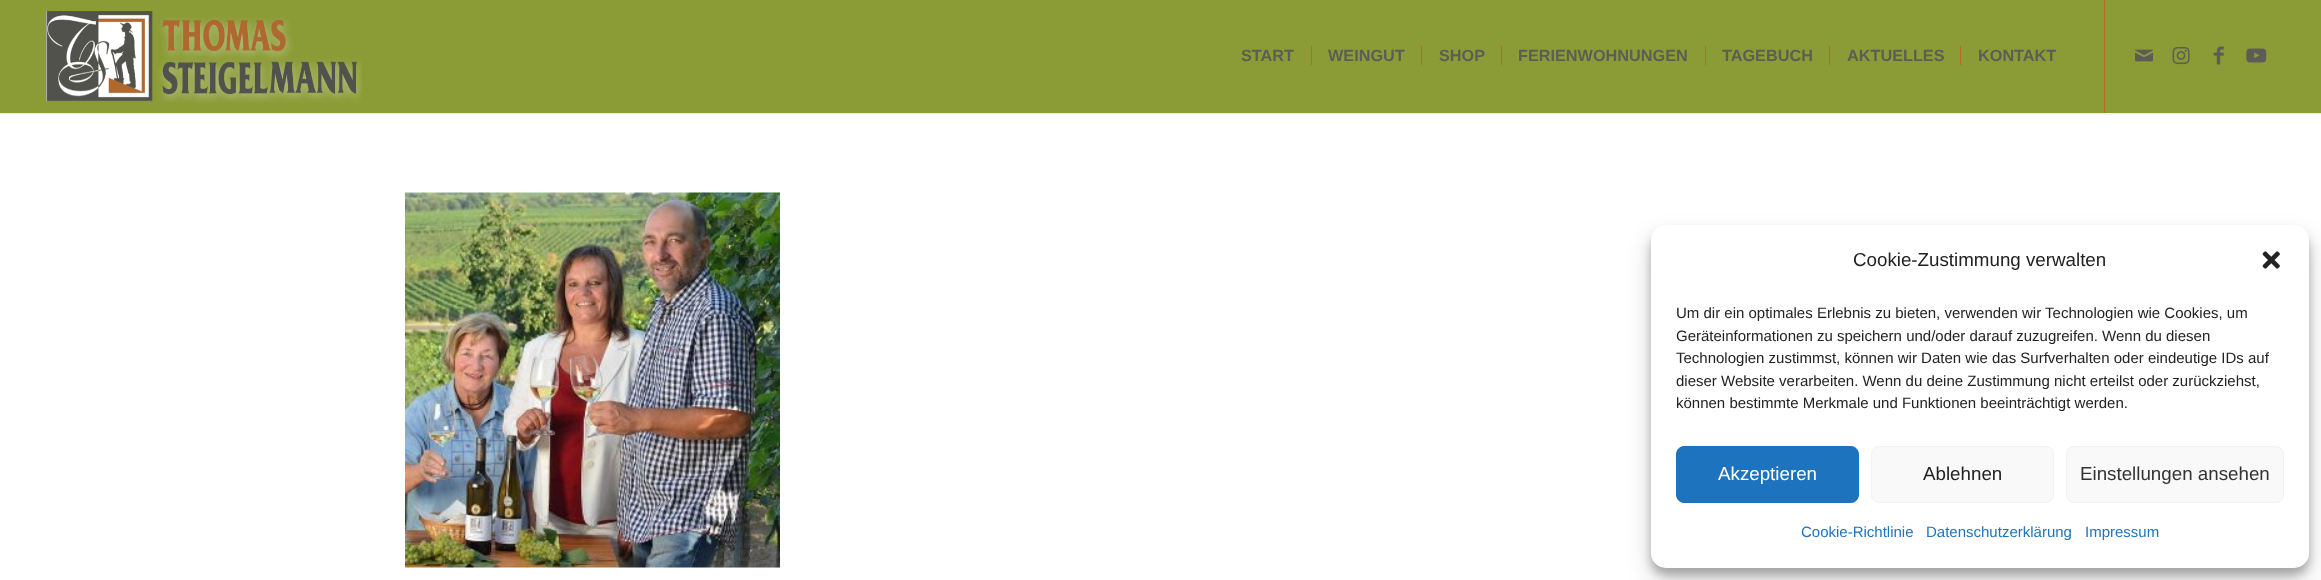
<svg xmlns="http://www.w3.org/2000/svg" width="2321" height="580">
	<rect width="100%" height="100%" fill="#FFFFFF" />
	<rect x="-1" y="-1" width="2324" height="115" fill="#000000" fill-opacity="0.1" filter="blur(1px)" />
	<rect x="0" y="0" width="2321" height="113" fill="#8B9C37" />
	<image x="46" y="11" width="316" height="92" href="assets/img1.png" />
	<rect x="2104" y="0" width="1" height="113" fill="#B9682A" />
	<g font-family="Liberation Sans" font-size="16.25" font-weight="700" fill="#5E5D55">
		<text x="1241" y="61">START</text>
		<text x="1328" y="61">WEINGUT</text>
	</g>
	<rect x="1311" y="46" width="1" height="19" fill="#B9682A" />
	<text x="1439" y="61" font-family="Liberation Sans" font-size="16.25" font-weight="700" fill="#5E5D55">SHOP</text>
	<rect x="1421" y="46" width="1" height="19" fill="#B9682A" />
	<text x="1518" y="61" font-family="Liberation Sans" font-size="16.25" font-weight="700" fill="#5E5D55">FERIENWOHNUNGEN</text>
	<rect x="1501" y="46" width="1" height="19" fill="#B9682A" />
	<text x="1722" y="61" font-family="Liberation Sans" font-size="16.25" font-weight="700" fill="#5E5D55">TAGEBUCH</text>
	<rect x="1705" y="46" width="1" height="19" fill="#B9682A" />
	<text x="1847" y="61" font-family="Liberation Sans" font-size="16.25" font-weight="700" fill="#5E5D55">AKTUELLES</text>
	<rect x="1829" y="46" width="1" height="19" fill="#B9682A" />
	<text x="1978" y="61" font-family="Liberation Sans" font-size="16.25" font-weight="700" fill="#5E5D55">KONTAKT</text>
	<rect x="1960" y="46" width="1" height="19" fill="#B9682A" />
	<image x="2135" y="49" width="18" height="13" href="assets/img2.png" />
	<image x="2172" y="46" width="18" height="19" href="assets/img3.png" />
	<image x="2213" y="46" width="11" height="19" href="assets/img4.png" />
	<image x="2246" y="48" width="21" height="15" href="assets/img5.png" />
	<image x="405" y="192" width="375" height="376" href="assets/img6.png" />
	<rect x="1651" y="233" width="658" height="342" rx="15" fill="#000000" fill-opacity="0.23" filter="blur(4px)" />
	<rect x="1651" y="238" width="658" height="342" rx="15" fill="#000000" fill-opacity="0.19" filter="blur(12.5px)" />
	<rect x="1651" y="225" width="658" height="343" rx="15" fill="#FFFFFF" />
	<text x="1853" y="266" font-family="Liberation Sans" font-size="18.75" fill="#222222">Cookie-Zustimmung verwalten</text>
	<image x="2262" y="251" width="18" height="18" href="assets/img7.png" />
	<g font-family="Liberation Sans" font-size="15" fill="#222222">
		<text x="1676" y="318">Um dir ein optimales Erlebnis zu bieten, verwenden wir Technologien wie Cookies, um</text>
		<text x="1676" y="341">Geräteinformationen zu speichern und/oder darauf zuzugreifen. Wenn du diesen</text>
		<text x="1676" y="363">Technologien zustimmst, können wir Daten wie das Surfverhalten oder eindeutige IDs auf</text>
		<text x="1676" y="386">dieser Website verarbeiten. Wenn du deine Zustimmung nicht erteilst oder zurückziehst,</text>
		<text x="1676" y="408">können bestimmte Merkmale und Funktionen beeinträchtigt werden.</text>
	</g>
	<rect x="1676.5" y="446.5" width="182" height="56" rx="7.5" fill="#1E73BE" stroke="#1E73BE" />
	<text x="1718" y="480" font-family="Liberation Sans" font-size="18.75" fill="#FFFFFF">Akzeptieren</text>
	<rect x="1871.5" y="446.5" width="182" height="56" rx="7.5" fill="#F9F9F9" stroke="#F2F2F2" />
	<text x="1923" y="480" font-family="Liberation Sans" font-size="18.75" fill="#222222">Ablehnen</text>
	<rect x="2066.5" y="446.5" width="217" height="56" rx="7.5" fill="#F9F9F9" stroke="#F2F2F2" />
	<text x="2080" y="480" font-family="Liberation Sans" font-size="18.75" fill="#333333">Einstellungen ansehen</text>
	<g font-family="Liberation Sans" font-size="15" fill="#1E73BE">
		<text x="1801" y="537">Cookie-Richtlinie</text>
		<text x="1926" y="537">Datenschutzerklärung</text>
		<text x="2085" y="537">Impressum</text>
	</g>
</svg>
